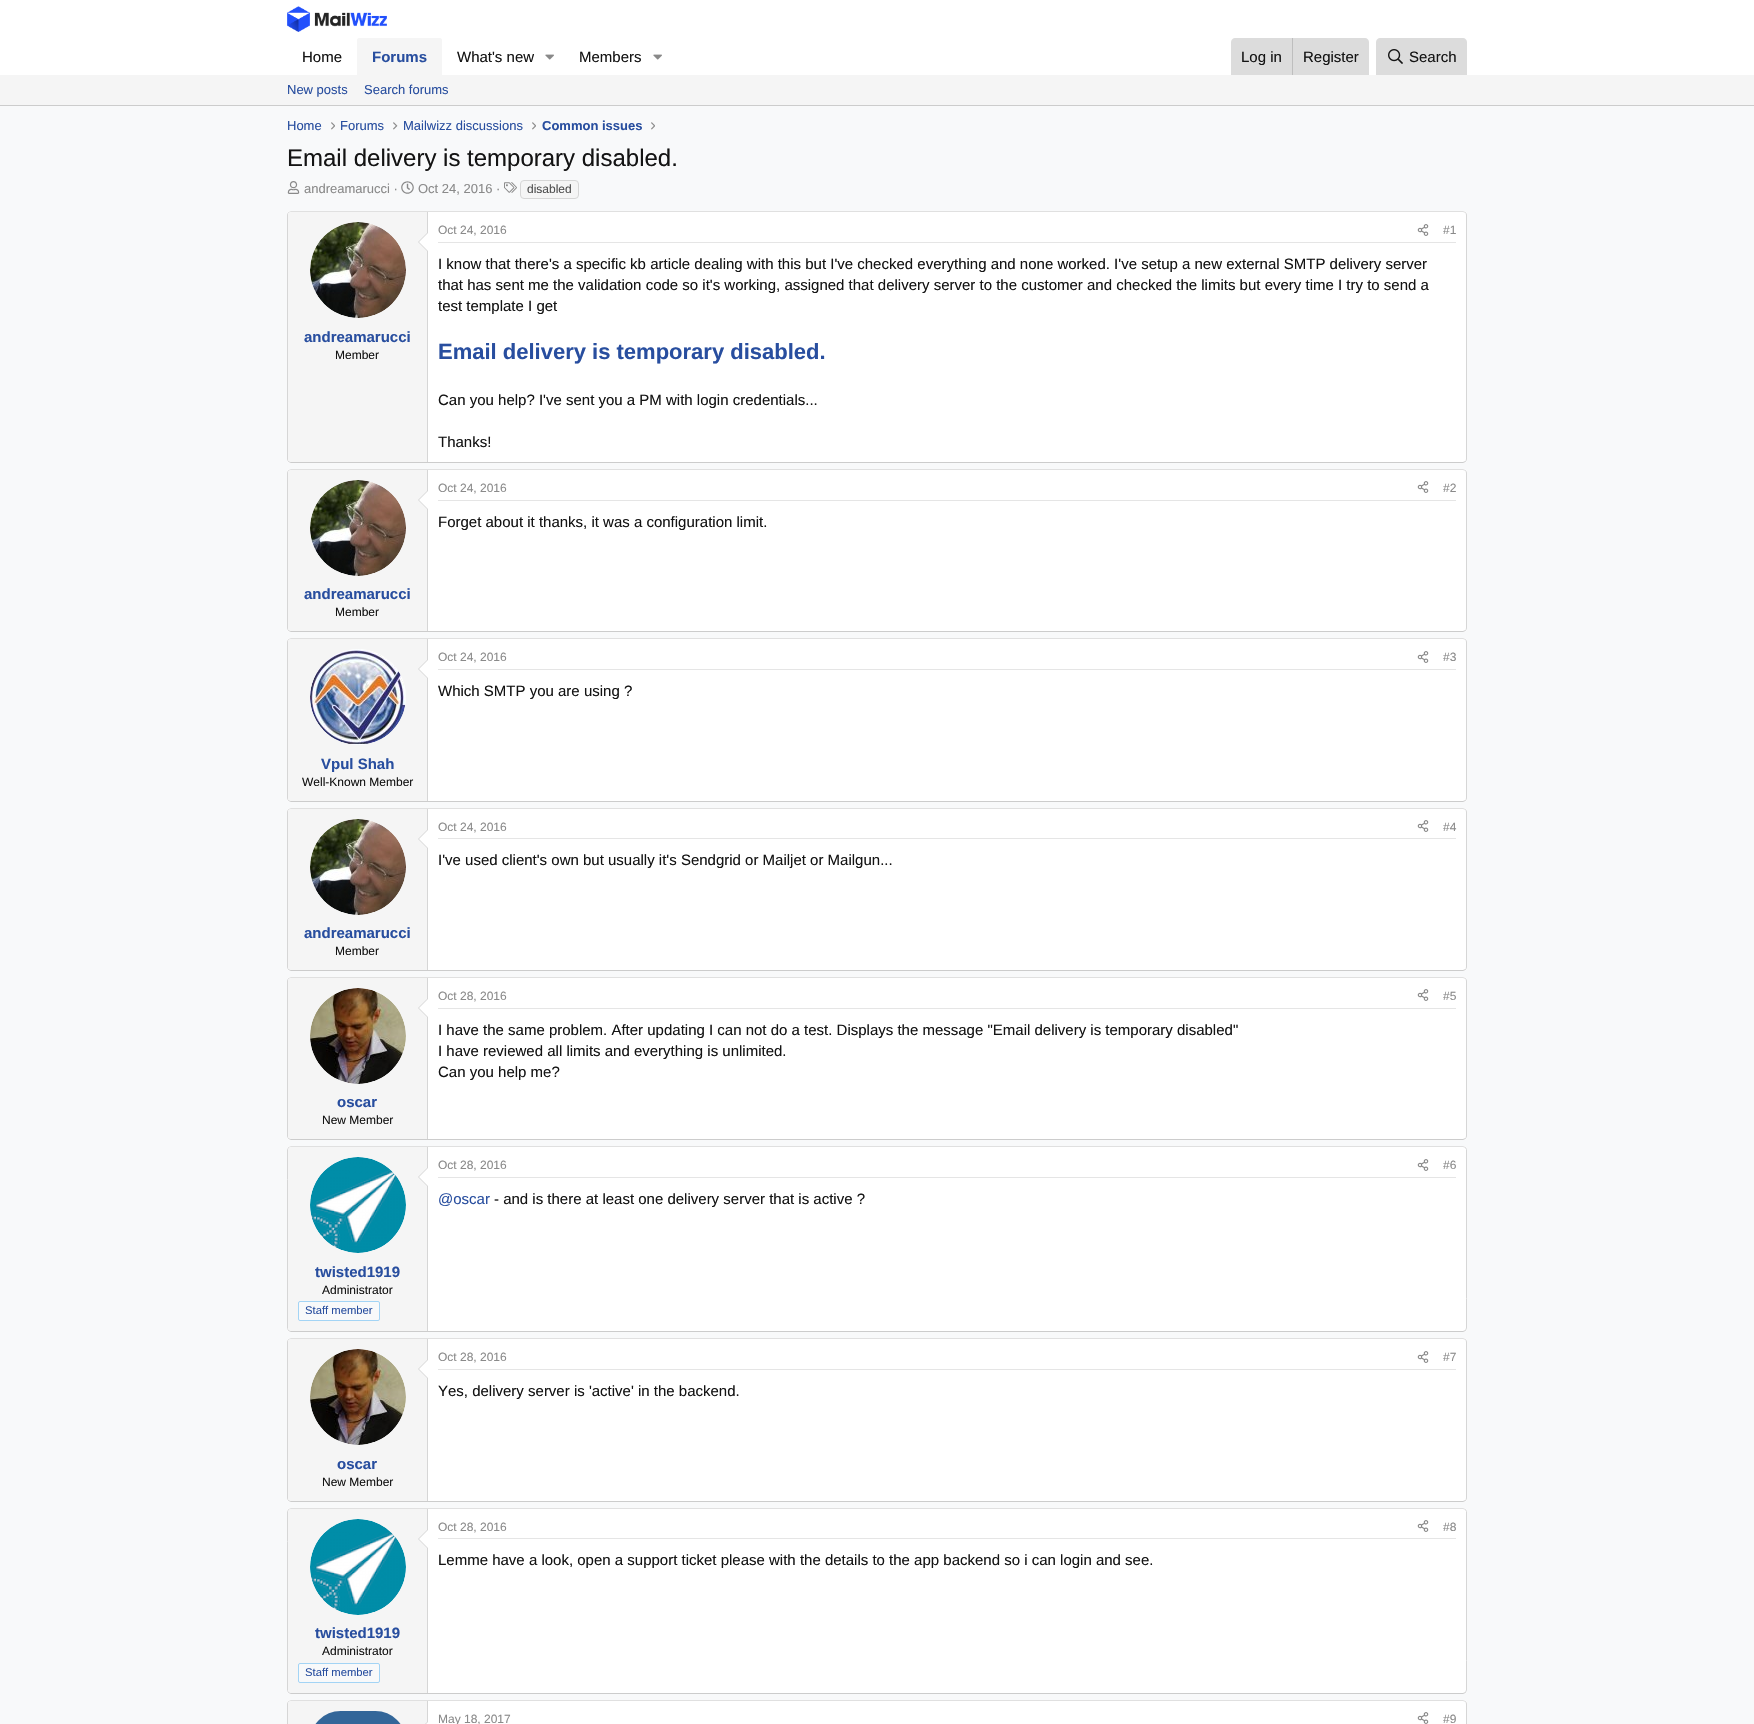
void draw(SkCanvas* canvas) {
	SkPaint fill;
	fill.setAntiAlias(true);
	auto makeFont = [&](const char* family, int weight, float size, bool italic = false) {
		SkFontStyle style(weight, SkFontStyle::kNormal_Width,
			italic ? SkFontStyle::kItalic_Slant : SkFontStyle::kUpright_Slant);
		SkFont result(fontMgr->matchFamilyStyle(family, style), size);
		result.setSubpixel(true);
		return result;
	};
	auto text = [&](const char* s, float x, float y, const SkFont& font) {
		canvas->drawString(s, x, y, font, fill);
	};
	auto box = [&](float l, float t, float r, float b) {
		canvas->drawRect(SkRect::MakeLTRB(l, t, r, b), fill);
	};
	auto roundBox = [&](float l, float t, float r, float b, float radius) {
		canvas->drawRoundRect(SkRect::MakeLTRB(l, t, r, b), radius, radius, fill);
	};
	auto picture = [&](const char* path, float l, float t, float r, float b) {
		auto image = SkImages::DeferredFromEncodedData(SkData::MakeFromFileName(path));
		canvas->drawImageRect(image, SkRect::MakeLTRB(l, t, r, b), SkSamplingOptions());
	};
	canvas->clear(0xFFF8F9FA);
	fill.setColor(0xFFFFFFFF);
	box(0, 0, 1754, 75);
	picture("image0.png", 287, 6, 387, 32);
	fill.setColor(0xFFF5F5F5);
	canvas->drawPath(SkPathBuilder().moveTo(359, 38).lineTo(440, 38).cubicTo(441, 38, 442, 39, 442, 40).lineTo(442, 75).lineTo(357, 75).lineTo(357, 40).cubicTo(357, 39, 358, 38, 359, 38).close().detach(), fill);
	picture("image1.png", 545, 54, 554, 60);
	picture("image1.png", 653, 54, 662, 60);
	fill.setColor(0xFFDCDCDC);
	canvas->drawPath(SkPathBuilder().moveTo(1235, 38).lineTo(1365, 38).cubicTo(1367, 38, 1369, 40, 1369, 42).lineTo(1369, 75).lineTo(1231, 75).lineTo(1231, 42).cubicTo(1231, 40, 1233, 38, 1235, 38).close().detach(), fill);
	fill.setColor(0xFFBEBEBE);
	box(1292, 38, 1293, 75);
	fill.setColor(0xFFDCDCDC);
	canvas->drawPath(SkPathBuilder().moveTo(1380, 38).lineTo(1463, 38).cubicTo(1465, 38, 1467, 40, 1467, 42).lineTo(1467, 75).lineTo(1376, 75).lineTo(1376, 42).cubicTo(1376, 40, 1378, 38, 1380, 38).close().detach(), fill);
	picture("image2.png", 1388, 49, 1403, 64);
	fill.setColor(0xFFF5F5F5);
	box(0, 75, 1754, 105);
	fill.setColor(0xFFCCCCCC);
	box(0, 105, 1754, 106);
	picture("image3.png", 331, 122, 335, 130);
	picture("image4.png", 393, 122, 398, 130);
	picture("image3.png", 532, 122, 536, 130);
	picture("image3.png", 651, 122, 655, 130);
	picture("image5.png", 287, 181, 300, 194);
	picture("image6.png", 401, 181, 414, 194);
	picture("image7.png", 504, 182, 517, 193);
	fill.setColor(0xFFF5F5F5);
	canvas->drawRoundRect(SkRect::MakeLTRB(520.5f, 180.5f, 578.5f, 198.5f), 3.5f, 3.5f, fill);
	fill.setStyle(SkPaint::kStroke_Style);
	fill.setStrokeWidth(1);
	fill.setColor(0xFFD6D6D6);
	canvas->drawRoundRect(SkRect::MakeLTRB(520.5f, 180.5f, 578.5f, 198.5f), 3.5f, 3.5f, fill);
	fill.setStyle(SkPaint::kFill_Style);
	fill.setColor(0xFFFFFFFF);
	roundBox(287, 211, 1467, 463, 4);
	fill.setStyle(SkPaint::kStroke_Style);
	fill.setColor(0xFFE0E0E0);
	canvas->drawPath(SkPathBuilder().moveTo(288.5f, 212.5f).lineTo(291, 211.5f).lineTo(1463, 211.5f).lineTo(1465.5f, 212.5f).detach(), fill);
	fill.setColor(0xFFD6D6D6);
	canvas->drawPath(SkPathBuilder().moveTo(1465.5f, 212.5f).cubicTo(1466, 213, 1466.5f, 214, 1466.5f, 215).lineTo(1466.5f, 459).cubicTo(1466.5f, 460, 1466, 461, 1465.5f, 461.5f).detach(), fill);
	fill.setColor(0xFFCCCCCC);
	canvas->drawPath(SkPathBuilder().moveTo(1465.5f, 461.5f).lineTo(1463, 462.5f).lineTo(291, 462.5f).lineTo(288.5f, 461.5f).detach(), fill);
	fill.setColor(0xFFD6D6D6);
	canvas->drawPath(SkPathBuilder().moveTo(288.5f, 461.5f).cubicTo(288, 461, 287.5f, 460, 287.5f, 459).lineTo(287.5f, 215).cubicTo(287.5f, 214, 288, 213, 288.5f, 212.5f).detach(), fill);
	fill.setStyle(SkPaint::kFill_Style);
	fill.setColor(0xFFF5F5F5);
	canvas->drawPath(SkPathBuilder().moveTo(291, 212).lineTo(428, 212).lineTo(428, 462).lineTo(291, 462).cubicTo(289.5f, 462, 288, 460.5f, 288, 459).lineTo(288, 215).cubicTo(288, 213.5f, 289.5f, 212, 291, 212).close().detach(), fill);
	fill.setColor(0xFFD6D6D6);
	box(427, 212, 428, 462);
	fill.setColor(0xFFFFFFFF);
	canvas->drawCircle(358, 270, 48, fill);
	picture("image8.png", 310, 222, 406, 318);
	fill.setColor(0xFFD6D6D6);
	canvas->drawPath(SkPathBuilder().moveTo(428, 232).lineTo(428, 252).lineTo(418, 242).close().detach(), fill);
	fill.setColor(0xFFFFFFFF);
	canvas->drawPath(SkPathBuilder().moveTo(428, 233).lineTo(428, 251).lineTo(419, 242).close().detach(), fill);
	fill.setColor(0xFFE5E5E5);
	box(438, 242, 1456, 243);
	picture("image9.png", 1417, 224, 1429, 236);
	fill.setColor(0xFFFFFFFF);
	roundBox(287, 469, 1467, 632, 4);
	fill.setStyle(SkPaint::kStroke_Style);
	fill.setColor(0xFFE0E0E0);
	canvas->drawPath(SkPathBuilder().moveTo(288.5f, 470.5f).lineTo(291, 469.5f).lineTo(1463, 469.5f).lineTo(1465.5f, 470.5f).detach(), fill);
	fill.setColor(0xFFD6D6D6);
	canvas->drawPath(SkPathBuilder().moveTo(1465.5f, 470.5f).cubicTo(1466, 471, 1466.5f, 472, 1466.5f, 473).lineTo(1466.5f, 628).cubicTo(1466.5f, 629, 1466, 630, 1465.5f, 630.5f).detach(), fill);
	fill.setColor(0xFFCCCCCC);
	canvas->drawPath(SkPathBuilder().moveTo(1465.5f, 630.5f).lineTo(1463, 631.5f).lineTo(291, 631.5f).lineTo(288.5f, 630.5f).detach(), fill);
	fill.setColor(0xFFD6D6D6);
	canvas->drawPath(SkPathBuilder().moveTo(288.5f, 630.5f).cubicTo(288, 630, 287.5f, 629, 287.5f, 628).lineTo(287.5f, 473).cubicTo(287.5f, 472, 288, 471, 288.5f, 470.5f).detach(), fill);
	fill.setStyle(SkPaint::kFill_Style);
	fill.setColor(0xFFE5E5E5);
	box(438, 500, 1456, 501);
	picture("image9.png", 1417, 481, 1429, 493);
	fill.setColor(0xFFF5F5F5);
	canvas->drawPath(SkPathBuilder().moveTo(291, 470).lineTo(428, 470).lineTo(428, 631).lineTo(291, 631).cubicTo(289.5f, 631, 288, 629.5f, 288, 628).lineTo(288, 473).cubicTo(288, 471.5f, 289.5f, 470, 291, 470).close().detach(), fill);
	fill.setColor(0xFFD6D6D6);
	box(427, 470, 428, 631);
	fill.setColor(0xFFFFFFFF);
	canvas->drawCircle(358, 528, 48, fill);
	picture("image10.png", 310, 480, 406, 576);
	fill.setColor(0xFFD6D6D6);
	canvas->drawPath(SkPathBuilder().moveTo(428, 490).lineTo(428, 510).lineTo(418, 500).close().detach(), fill);
	fill.setColor(0xFFFFFFFF);
	canvas->drawPath(SkPathBuilder().moveTo(428, 491).lineTo(428, 509).lineTo(419, 500).close().detach(), fill);
	roundBox(287, 638, 1467, 802, 4);
	fill.setStyle(SkPaint::kStroke_Style);
	fill.setColor(0xFFE0E0E0);
	canvas->drawPath(SkPathBuilder().moveTo(288.5f, 639.5f).lineTo(291, 638.5f).lineTo(1463, 638.5f).lineTo(1465.5f, 639.5f).detach(), fill);
	fill.setColor(0xFFD6D6D6);
	canvas->drawPath(SkPathBuilder().moveTo(1465.5f, 639.5f).cubicTo(1466, 640, 1466.5f, 641, 1466.5f, 642).lineTo(1466.5f, 798).cubicTo(1466.5f, 799, 1466, 800, 1465.5f, 800.5f).detach(), fill);
	fill.setColor(0xFFCCCCCC);
	canvas->drawPath(SkPathBuilder().moveTo(1465.5f, 800.5f).lineTo(1463, 801.5f).lineTo(291, 801.5f).lineTo(288.5f, 800.5f).detach(), fill);
	fill.setColor(0xFFD6D6D6);
	canvas->drawPath(SkPathBuilder().moveTo(288.5f, 800.5f).cubicTo(288, 800, 287.5f, 799, 287.5f, 798).lineTo(287.5f, 642).cubicTo(287.5f, 641, 288, 640, 288.5f, 639.5f).detach(), fill);
	fill.setStyle(SkPaint::kFill_Style);
	fill.setColor(0xFFE5E5E5);
	box(438, 669, 1456, 670);
	picture("image9.png", 1417, 651, 1429, 663);
	fill.setColor(0xFFF5F5F5);
	canvas->drawPath(SkPathBuilder().moveTo(291, 639).lineTo(428, 639).lineTo(428, 801).lineTo(291, 801).cubicTo(289.5f, 801, 288, 799.5f, 288, 798).lineTo(288, 642).cubicTo(288, 640.5f, 289.5f, 639, 291, 639).close().detach(), fill);
	fill.setColor(0xFFD6D6D6);
	box(427, 639, 428, 801);
	fill.setColor(0xFFFFFFFF);
	canvas->drawCircle(358, 697, 48, fill);
	picture("image11.png", 310, 649, 406, 745);
	fill.setColor(0xFFD6D6D6);
	canvas->drawPath(SkPathBuilder().moveTo(428, 659).lineTo(428, 679).lineTo(418, 669).close().detach(), fill);
	fill.setColor(0xFFFFFFFF);
	canvas->drawPath(SkPathBuilder().moveTo(428, 660).lineTo(428, 678).lineTo(419, 669).close().detach(), fill);
	roundBox(287, 808, 1467, 971, 4);
	fill.setStyle(SkPaint::kStroke_Style);
	fill.setColor(0xFFE0E0E0);
	canvas->drawPath(SkPathBuilder().moveTo(288.5f, 809.5f).lineTo(291, 808.5f).lineTo(1463, 808.5f).lineTo(1465.5f, 809.5f).detach(), fill);
	fill.setColor(0xFFD6D6D6);
	canvas->drawPath(SkPathBuilder().moveTo(1465.5f, 809.5f).cubicTo(1466, 810, 1466.5f, 811, 1466.5f, 812).lineTo(1466.5f, 967).cubicTo(1466.5f, 968, 1466, 969, 1465.5f, 969.5f).detach(), fill);
	fill.setColor(0xFFCCCCCC);
	canvas->drawPath(SkPathBuilder().moveTo(1465.5f, 969.5f).lineTo(1463, 970.5f).lineTo(291, 970.5f).lineTo(288.5f, 969.5f).detach(), fill);
	fill.setColor(0xFFD6D6D6);
	canvas->drawPath(SkPathBuilder().moveTo(288.5f, 969.5f).cubicTo(288, 969, 287.5f, 968, 287.5f, 967).lineTo(287.5f, 812).cubicTo(287.5f, 811, 288, 810, 288.5f, 809.5f).detach(), fill);
	fill.setStyle(SkPaint::kFill_Style);
	fill.setColor(0xFFE5E5E5);
	box(438, 838, 1456, 839);
	picture("image9.png", 1417, 820, 1429, 832);
	fill.setColor(0xFFF5F5F5);
	canvas->drawPath(SkPathBuilder().moveTo(291, 809).lineTo(428, 809).lineTo(428, 970).lineTo(291, 970).cubicTo(289.5f, 970, 288, 968.5f, 288, 967).lineTo(288, 812).cubicTo(288, 810.5f, 289.5f, 809, 291, 809).close().detach(), fill);
	fill.setColor(0xFFD6D6D6);
	box(427, 809, 428, 970);
	fill.setColor(0xFFFFFFFF);
	canvas->drawCircle(358, 867, 48, fill);
	picture("image12.png", 310, 819, 406, 915);
	fill.setColor(0xFFD6D6D6);
	canvas->drawPath(SkPathBuilder().moveTo(428, 829).lineTo(428, 849).lineTo(418, 839).close().detach(), fill);
	fill.setColor(0xFFFFFFFF);
	canvas->drawPath(SkPathBuilder().moveTo(428, 830).lineTo(428, 848).lineTo(419, 839).close().detach(), fill);
	roundBox(287, 977, 1467, 1140, 4);
	fill.setStyle(SkPaint::kStroke_Style);
	fill.setColor(0xFFE0E0E0);
	canvas->drawPath(SkPathBuilder().moveTo(288.5f, 978.5f).lineTo(291, 977.5f).lineTo(1463, 977.5f).lineTo(1465.5f, 978.5f).detach(), fill);
	fill.setColor(0xFFD6D6D6);
	canvas->drawPath(SkPathBuilder().moveTo(1465.5f, 978.5f).cubicTo(1466, 979, 1466.5f, 980, 1466.5f, 981).lineTo(1466.5f, 1136).cubicTo(1466.5f, 1137, 1466, 1138, 1465.5f, 1138.5f).detach(), fill);
	fill.setColor(0xFFCCCCCC);
	canvas->drawPath(SkPathBuilder().moveTo(1465.5f, 1138.5f).lineTo(1463, 1139.5f).lineTo(291, 1139.5f).lineTo(288.5f, 1138.5f).detach(), fill);
	fill.setColor(0xFFD6D6D6);
	canvas->drawPath(SkPathBuilder().moveTo(288.5f, 1138.5f).cubicTo(288, 1138, 287.5f, 1137, 287.5f, 1136).lineTo(287.5f, 981).cubicTo(287.5f, 980, 288, 979, 288.5f, 978.5f).detach(), fill);
	fill.setStyle(SkPaint::kFill_Style);
	fill.setColor(0xFFE5E5E5);
	box(438, 1008, 1456, 1009);
	picture("image9.png", 1417, 989, 1429, 1001);
	fill.setColor(0xFFF5F5F5);
	canvas->drawPath(SkPathBuilder().moveTo(291, 978).lineTo(428, 978).lineTo(428, 1139).lineTo(291, 1139).cubicTo(289.5f, 1139, 288, 1137.5f, 288, 1136).lineTo(288, 981).cubicTo(288, 979.5f, 289.5f, 978, 291, 978).close().detach(), fill);
	fill.setColor(0xFFD6D6D6);
	box(427, 978, 428, 1139);
	fill.setColor(0xFFFFFFFF);
	canvas->drawCircle(358, 1036, 48, fill);
	picture("image13.png", 310, 988, 406, 1084);
	fill.setColor(0xFFD6D6D6);
	canvas->drawPath(SkPathBuilder().moveTo(428, 998).lineTo(428, 1018).lineTo(418, 1008).close().detach(), fill);
	fill.setColor(0xFFFFFFFF);
	canvas->drawPath(SkPathBuilder().moveTo(428, 999).lineTo(428, 1017).lineTo(419, 1008).close().detach(), fill);
	roundBox(287, 1146, 1467, 1332, 4);
	fill.setStyle(SkPaint::kStroke_Style);
	fill.setColor(0xFFE0E0E0);
	canvas->drawPath(SkPathBuilder().moveTo(288.5f, 1147.5f).lineTo(291, 1146.5f).lineTo(1463, 1146.5f).lineTo(1465.5f, 1147.5f).detach(), fill);
	fill.setColor(0xFFD6D6D6);
	canvas->drawPath(SkPathBuilder().moveTo(1465.5f, 1147.5f).lineTo(1466.5f, 1149.5f).lineTo(1466.5f, 1298.5f).lineTo(1466.5f, 1328).lineTo(1465.5f, 1330.5f).detach(), fill);
	fill.setColor(0xFFCCCCCC);
	canvas->drawPath(SkPathBuilder().moveTo(1465.5f, 1330.5f).lineTo(1463, 1331.5f).lineTo(291, 1331.5f).lineTo(288.5f, 1330.5f).detach(), fill);
	fill.setColor(0xFFD6D6D6);
	canvas->drawPath(SkPathBuilder().moveTo(288.5f, 1330.5f).lineTo(287.5f, 1328.5f).lineTo(287.5f, 1179.5f).lineTo(287.5f, 1150).lineTo(288.5f, 1147.5f).detach(), fill);
	fill.setStyle(SkPaint::kFill_Style);
	fill.setColor(0xFFE5E5E5);
	box(438, 1177, 1456, 1178);
	picture("image9.png", 1417, 1159, 1429, 1171);
	fill.setColor(0xFFF5F5F5);
	canvas->drawPath(SkPathBuilder().moveTo(291, 1147).lineTo(428, 1147).lineTo(428, 1331).lineTo(291, 1331).cubicTo(289.5f, 1331, 288, 1329.5f, 288, 1328).lineTo(288, 1150).cubicTo(288, 1148.5f, 289.5f, 1147, 291, 1147).close().detach(), fill);
	fill.setColor(0xFFD6D6D6);
	box(427, 1147, 428, 1331);
	fill.setColor(0xFFFFFFFF);
	canvas->drawCircle(358, 1205, 48, fill);
	picture("image14.png", 310, 1157, 406, 1253);
	fill.setColor(0xFFD6D6D6);
	canvas->drawPath(SkPathBuilder().moveTo(428, 1167).lineTo(428, 1187).lineTo(418, 1177).close().detach(), fill);
	fill.setColor(0xFFFFFFFF);
	canvas->drawPath(SkPathBuilder().moveTo(428, 1168).lineTo(428, 1186).lineTo(419, 1177).close().detach(), fill);
	fill.setColor(0xFFF8F9FA);
	canvas->drawRoundRect(SkRect::MakeLTRB(298.5f, 1301.5f, 379.5f, 1320.5f), 1.5f, 1.5f, fill);
	fill.setStyle(SkPaint::kStroke_Style);
	fill.setColor(0xFFA3D4F5);
	canvas->drawRoundRect(SkRect::MakeLTRB(298.5f, 1301.5f, 379.5f, 1320.5f), 1.5f, 1.5f, fill);
	fill.setStyle(SkPaint::kFill_Style);
	fill.setColor(0xFFFFFFFF);
	roundBox(287, 1338, 1467, 1502, 4);
	fill.setStyle(SkPaint::kStroke_Style);
	fill.setColor(0xFFE0E0E0);
	canvas->drawPath(SkPathBuilder().moveTo(288.5f, 1339.5f).lineTo(291, 1338.5f).lineTo(1463, 1338.5f).lineTo(1465.5f, 1339.5f).detach(), fill);
	fill.setColor(0xFFD6D6D6);
	canvas->drawPath(SkPathBuilder().moveTo(1465.5f, 1339.5f).cubicTo(1466, 1340, 1466.5f, 1341, 1466.5f, 1342).lineTo(1466.5f, 1498).cubicTo(1466.5f, 1499, 1466, 1500, 1465.5f, 1500.5f).detach(), fill);
	fill.setColor(0xFFCCCCCC);
	canvas->drawPath(SkPathBuilder().moveTo(1465.5f, 1500.5f).lineTo(1463, 1501.5f).lineTo(291, 1501.5f).lineTo(288.5f, 1500.5f).detach(), fill);
	fill.setColor(0xFFD6D6D6);
	canvas->drawPath(SkPathBuilder().moveTo(288.5f, 1500.5f).cubicTo(288, 1500, 287.5f, 1499, 287.5f, 1498).lineTo(287.5f, 1342).cubicTo(287.5f, 1341, 288, 1340, 288.5f, 1339.5f).detach(), fill);
	fill.setStyle(SkPaint::kFill_Style);
	fill.setColor(0xFFE5E5E5);
	box(438, 1369, 1456, 1370);
	picture("image9.png", 1417, 1351, 1429, 1363);
	fill.setColor(0xFFF5F5F5);
	canvas->drawPath(SkPathBuilder().moveTo(291, 1339).lineTo(428, 1339).lineTo(428, 1501).lineTo(291, 1501).cubicTo(289.5f, 1501, 288, 1499.5f, 288, 1498).lineTo(288, 1342).cubicTo(288, 1340.5f, 289.5f, 1339, 291, 1339).close().detach(), fill);
	fill.setColor(0xFFD6D6D6);
	box(427, 1339, 428, 1501);
	fill.setColor(0xFFFFFFFF);
	canvas->drawCircle(358, 1397, 48, fill);
	picture("image15.png", 310, 1349, 406, 1445);
	fill.setColor(0xFFD6D6D6);
	canvas->drawPath(SkPathBuilder().moveTo(428, 1359).lineTo(428, 1379).lineTo(418, 1369).close().detach(), fill);
	fill.setColor(0xFFFFFFFF);
	canvas->drawPath(SkPathBuilder().moveTo(428, 1360).lineTo(428, 1378).lineTo(419, 1369).close().detach(), fill);
	roundBox(287, 1508, 1467, 1694, 4);
	fill.setStyle(SkPaint::kStroke_Style);
	fill.setColor(0xFFE0E0E0);
	canvas->drawPath(SkPathBuilder().moveTo(288.5f, 1509.5f).lineTo(291, 1508.5f).lineTo(1463, 1508.5f).lineTo(1465.5f, 1509.5f).detach(), fill);
	fill.setColor(0xFFD6D6D6);
	canvas->drawPath(SkPathBuilder().moveTo(1465.5f, 1509.5f).lineTo(1466.5f, 1511.5f).lineTo(1466.5f, 1660.5f).lineTo(1466.5f, 1690).lineTo(1465.5f, 1692.5f).detach(), fill);
	fill.setColor(0xFFCCCCCC);
	canvas->drawPath(SkPathBuilder().moveTo(1465.5f, 1692.5f).lineTo(1463, 1693.5f).lineTo(291, 1693.5f).lineTo(288.5f, 1692.5f).detach(), fill);
	fill.setColor(0xFFD6D6D6);
	canvas->drawPath(SkPathBuilder().moveTo(288.5f, 1692.5f).lineTo(287.5f, 1690.5f).lineTo(287.5f, 1541.5f).lineTo(287.5f, 1512).lineTo(288.5f, 1509.5f).detach(), fill);
	fill.setStyle(SkPaint::kFill_Style);
	fill.setColor(0xFFE5E5E5);
	box(438, 1538, 1456, 1539);
	picture("image16.png", 1417, 1520, 1429, 1532);
	fill.setColor(0xFFF5F5F5);
	canvas->drawPath(SkPathBuilder().moveTo(291, 1509).lineTo(428, 1509).lineTo(428, 1693).lineTo(291, 1693).cubicTo(289.5f, 1693, 288, 1691.5f, 288, 1690).lineTo(288, 1512).cubicTo(288, 1510.5f, 289.5f, 1509, 291, 1509).close().detach(), fill);
	fill.setColor(0xFFD6D6D6);
	box(427, 1509, 428, 1693);
	fill.setColor(0xFFFFFFFF);
	canvas->drawCircle(358, 1567, 48, fill);
	picture("image17.png", 310, 1519, 406, 1615);
	fill.setColor(0xFFD6D6D6);
	canvas->drawPath(SkPathBuilder().moveTo(428, 1529).lineTo(428, 1549).lineTo(418, 1539).close().detach(), fill);
	fill.setColor(0xFFFFFFFF);
	canvas->drawPath(SkPathBuilder().moveTo(428, 1530).lineTo(428, 1548).lineTo(419, 1539).close().detach(), fill);
	fill.setColor(0xFFF8F9FA);
	canvas->drawRoundRect(SkRect::MakeLTRB(298.5f, 1663.5f, 379.5f, 1682.5f), 1.5f, 1.5f, fill);
	fill.setStyle(SkPaint::kStroke_Style);
	fill.setColor(0xFFA3D4F5);
	canvas->drawRoundRect(SkRect::MakeLTRB(298.5f, 1663.5f, 379.5f, 1682.5f), 1.5f, 1.5f, fill);
	fill.setStyle(SkPaint::kFill_Style);
	fill.setColor(0xFFFFFFFF);
	roundBox(287, 1700, 1467, 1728, 4);
	fill.setStyle(SkPaint::kStroke_Style);
	fill.setColor(0xFFE0E0E0);
	canvas->drawPath(SkPathBuilder().moveTo(288.5f, 1701.5f).lineTo(291, 1700.5f).lineTo(1463, 1700.5f).lineTo(1465.5f, 1701.5f).detach(), fill);
	fill.setColor(0xFFD6D6D6);
	canvas->drawPath(SkPathBuilder().moveTo(1465.5f, 1701.5f).cubicTo(1466, 1702, 1466.5f, 1703, 1466.5f, 1704).lineTo(1466.5f, 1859).cubicTo(1466.5f, 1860, 1466, 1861, 1465.5f, 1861.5f).detach(), fill);
	canvas->drawPath(SkPathBuilder().moveTo(288.5f, 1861.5f).cubicTo(288, 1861, 287.5f, 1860, 287.5f, 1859).lineTo(287.5f, 1704).cubicTo(287.5f, 1703, 288, 1702, 288.5f, 1701.5f).detach(), fill);
	fill.setStyle(SkPaint::kFill_Style);
	fill.setColor(0xFFF5F5F5);
	canvas->drawPath(SkPathBuilder().moveTo(291, 1701).lineTo(428, 1701).lineTo(428, 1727).lineTo(291, 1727).cubicTo(289.5f, 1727, 288, 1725.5f, 288, 1724).lineTo(288, 1704).cubicTo(288, 1702.5f, 289.5f, 1701, 291, 1701).close().detach(), fill);
	fill.setColor(0xFFD6D6D6);
	box(427, 1701, 428, 1724);
	fill.setColor(0xFF336699);
	roundBox(310, 1711, 406, 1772, 48);
	fill.setColor(0xFFD6D6D6);
	canvas->drawPath(SkPathBuilder().moveTo(428, 1721).lineTo(428, 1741).lineTo(418, 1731).close().detach(), fill);
	fill.setColor(0xFFFFFFFF);
	canvas->drawPath(SkPathBuilder().moveTo(428, 1722).lineTo(428, 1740).lineTo(419, 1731).close().detach(), fill);
	picture("image9.png", 1417, 1712, 1429, 1724);
	auto font1 = makeFont("Liberation Sans", 400, 15);
	fill.setColor(0xFF141414);
	text("Home", 302, 62, font1);
	auto font2 = makeFont("Liberation Sans", 700, 15);
	fill.setColor(0xFF284E9F);
	text("Forums", 372, 62, font2);
	fill.setColor(0xFF141414);
	text("What's new", 457, 62, font1);
	text("Members", 579, 62, font1);
	text("Log in", 1241, 62, font1);
	text("Register", 1303, 62, font1);
	text("Search", 1409, 62, font1);
	auto font3 = makeFont("Liberation Sans", 400, 13);
	fill.setColor(0xFF284E9F);
	text("New posts", 287, 94, font3);
	text("Search forums", 364, 94, font3);
	text("Home", 287, 130, font3);
	text("Forums", 340, 130, font3);
	text("Mailwizz discussions", 403, 130, font3);
	auto font4 = makeFont("Liberation Sans", 700, 13);
	text("Common issues", 542, 130, font4);
	auto font5 = makeFont("Liberation Sans", 400, 24);
	fill.setColor(0xFF141414);
	text("Email delivery is temporary disabled.", 287, 166, font5);
	fill.setColor(0xFF8A8A8A);
	text("andreamarucci ·", 304, 193, font3);
	text("Oct 24, 2016 ·", 418, 193, font3);
	auto font6 = makeFont("Liberation Sans", 400, 12);
	fill.setColor(0xFF4F4F4F);
	text("disabled", 527, 193, font6);
	fill.setColor(0xFF284E9F);
	text("andreamarucci", 304, 342, font2);
	fill.setColor(0xFF141414);
	text("Member", 335, 359, font6);
	fill.setColor(0xFF8A8A8A);
	text("Oct 24, 2016", 438, 234, font6);
	text("#1", 1443, 234, font6);
	fill.setColor(0xFF141414);
	text("I know that there's a specific kb article dealing with this but I've checked everything and none worked. I've setup a new external SMTP delivery server", 438, 269, font1);
	text("that has sent me the validation code so it's working, assigned that delivery server to the customer and checked the limits but every time I try to send a", 438, 290, font1);
	text("test template I get", 438, 311, font1);
	auto font7 = makeFont("Liberation Sans", 700, 22);
	fill.setColor(0xFF284E9F);
	text("Email delivery is temporary disabled.", 438, 359, font7);
	fill.setColor(0xFF141414);
	text("Can you help? I've sent you a PM with login credentials...", 438, 405, font1);
	text("Thanks!", 438, 447, font1);
	fill.setColor(0xFF8A8A8A);
	text("Oct 24, 2016", 438, 492, font6);
	text("#2", 1443, 492, font6);
	fill.setColor(0xFF141414);
	text("Forget about it thanks, it was a configuration limit.", 438, 527, font1);
	fill.setColor(0xFF284E9F);
	text("andreamarucci", 304, 599, font2);
	fill.setColor(0xFF141414);
	text("Member", 335, 616, font6);
	fill.setColor(0xFF8A8A8A);
	text("Oct 24, 2016", 438, 661, font6);
	text("#3", 1443, 661, font6);
	fill.setColor(0xFF141414);
	text("Which SMTP you are using ?", 438, 696, font1);
	fill.setColor(0xFF284E9F);
	text("Vpul Shah", 321, 769, font2);
	fill.setColor(0xFF141414);
	text("Well-Known Member", 302, 786, font6);
	fill.setColor(0xFF8A8A8A);
	text("Oct 24, 2016", 438, 831, font6);
	text("#4", 1443, 831, font6);
	fill.setColor(0xFF141414);
	text("I've used client's own but usually it's Sendgrid or Mailjet or Mailgun...", 438, 865, font1);
	fill.setColor(0xFF284E9F);
	text("andreamarucci", 304, 938, font2);
	fill.setColor(0xFF141414);
	text("Member", 335, 955, font6);
	fill.setColor(0xFF8A8A8A);
	text("Oct 28, 2016", 438, 1000, font6);
	text("#5", 1443, 1000, font6);
	fill.setColor(0xFF141414);
	text("I have the same problem. After updating I can not do a test. Displays the message \"Email delivery is temporary disabled\"", 438, 1035, font1);
	text("I have reviewed all limits and everything is unlimited.", 438, 1056, font1);
	text("Can you help me?", 438, 1077, font1);
	fill.setColor(0xFF284E9F);
	text("oscar", 337, 1107, font2);
	fill.setColor(0xFF141414);
	text("New Member", 322, 1124, font6);
	fill.setColor(0xFF8A8A8A);
	text("Oct 28, 2016", 438, 1169, font6);
	text("#6", 1443, 1169, font6);
	fill.setColor(0xFF284E9F);
	text("@oscar", 438, 1204, font1);
	fill.setColor(0xFF141414);
	text("- and is there at least one delivery server that is active ?", 494, 1204, font1);
	fill.setColor(0xFF284E9F);
	text("twisted1919", 315, 1277, font2);
	fill.setColor(0xFF141414);
	text("Administrator", 322, 1294, font6);
	auto font8 = makeFont("Liberation Sans", 400, 11.25f);
	fill.setColor(0xFF284E9F);
	text("Staff member", 305, 1314, font8);
	fill.setColor(0xFF8A8A8A);
	text("Oct 28, 2016", 438, 1361, font6);
	text("#7", 1443, 1361, font6);
	fill.setColor(0xFF141414);
	text("Yes, delivery server is 'active' in the backend.", 438, 1396, font1);
	fill.setColor(0xFF284E9F);
	text("oscar", 337, 1469, font2);
	fill.setColor(0xFF141414);
	text("New Member", 322, 1486, font6);
	fill.setColor(0xFF8A8A8A);
	text("Oct 28, 2016", 438, 1531, font6);
	text("#8", 1443, 1531, font6);
	fill.setColor(0xFF141414);
	text("Lemme have a look, open a support ticket please with the details to the app backend so i can login and see.", 438, 1565, font1);
	fill.setColor(0xFF284E9F);
	text("twisted1919", 315, 1638, font2);
	fill.setColor(0xFF141414);
	text("Administrator", 322, 1655, font6);
	fill.setColor(0xFF284E9F);
	text("Staff member", 305, 1676, font8);
	fill.setColor(0xFF8A8A8A);
	text("May 18, 2017", 438, 1723, font6);
	text("#9", 1443, 1723, font6);
}
